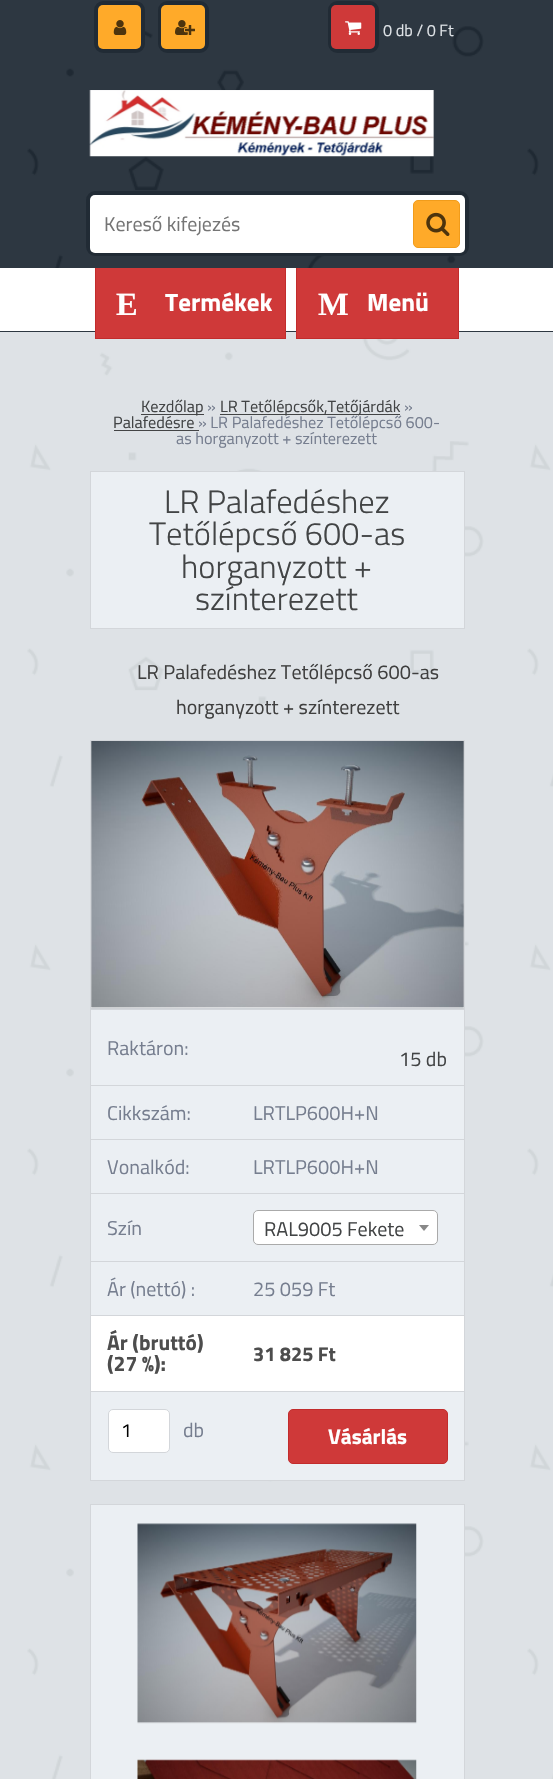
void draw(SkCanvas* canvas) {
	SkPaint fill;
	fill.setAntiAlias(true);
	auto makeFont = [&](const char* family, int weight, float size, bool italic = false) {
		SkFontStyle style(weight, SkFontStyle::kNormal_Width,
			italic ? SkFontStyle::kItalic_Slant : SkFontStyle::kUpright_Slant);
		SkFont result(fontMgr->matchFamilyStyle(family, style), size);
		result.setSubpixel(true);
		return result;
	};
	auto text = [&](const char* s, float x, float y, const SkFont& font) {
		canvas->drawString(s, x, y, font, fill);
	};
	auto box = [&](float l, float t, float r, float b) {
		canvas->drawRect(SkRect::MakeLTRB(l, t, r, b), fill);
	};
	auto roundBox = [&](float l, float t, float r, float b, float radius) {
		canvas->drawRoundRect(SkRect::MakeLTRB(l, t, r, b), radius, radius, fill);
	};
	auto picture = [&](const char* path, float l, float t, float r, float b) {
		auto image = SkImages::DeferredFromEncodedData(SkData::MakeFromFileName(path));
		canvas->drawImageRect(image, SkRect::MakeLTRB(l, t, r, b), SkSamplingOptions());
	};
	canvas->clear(0xFFDEE2E6);
	picture("image0.png", 27, 332, 553, 1779);
	picture("image7.png", 0, 0, 553, 332);
	fill.setStyle(SkPaint::kStroke_Style);
	fill.setStrokeWidth(4);
	fill.setColor(0xFF212B35);
	canvas->drawRoundRect(SkRect::MakeLTRB(96, 3, 143, 51), 7, 7, fill);
	fill.setStyle(SkPaint::kFill_Style);
	fill.setColor(0xFFFFAA29);
	roundBox(98, 5, 141, 49, 5);
	picture("image1.png", 113, 20, 127, 35);
	fill.setStyle(SkPaint::kStroke_Style);
	fill.setColor(0xFF212B35);
	canvas->drawRoundRect(SkRect::MakeLTRB(160, 3, 207, 51), 7, 7, fill);
	fill.setStyle(SkPaint::kFill_Style);
	fill.setColor(0xFFFFAA29);
	roundBox(161, 5, 205, 49, 5);
	picture("image2.png", 175, 20, 195, 35);
	fill.setStyle(SkPaint::kStroke_Style);
	fill.setColor(0xFF212B35);
	canvas->drawRoundRect(SkRect::MakeLTRB(330, 3, 377, 51), 7, 7, fill);
	fill.setStyle(SkPaint::kFill_Style);
	fill.setColor(0xFFCF3939);
	roundBox(331, 5, 375, 49, 5);
	picture("image3.png", 345, 21, 362, 35);
	fill.setColor(0xFFFFFFFF);
	box(0, 268, 553, 331);
	fill.setColor(0xFFCF3939);
	box(96, 268, 285, 338);
	fill.setColor(0xFFC22C2C);
	box(285, 268, 286, 339);
	box(95, 338, 286, 339);
	box(95, 268, 96, 339);
	fill.setColor(0xFFCF3939);
	box(297, 268, 458, 338);
	fill.setColor(0xFFC22C2C);
	box(458, 268, 459, 339);
	box(296, 338, 459, 339);
	box(296, 268, 297, 339);
	fill.setColor(0xFF434445);
	box(141, 414, 204, 415);
	fill.setColor(0xB3000000);
	box(220, 414, 400, 415);
	fill.setColor(0xFF434445);
	box(114, 430, 199, 431);
	fill.setColor(0xFFEBEFF3);
	canvas->drawRect(SkRect::MakeLTRB(90.5f, 471.5f, 464.5f, 628.5f), fill);
	fill.setStyle(SkPaint::kStroke_Style);
	fill.setStrokeWidth(1);
	fill.setColor(0xFFD3D6DA);
	canvas->drawRect(SkRect::MakeLTRB(90.5f, 471.5f, 464.5f, 628.5f), fill);
	canvas->drawRect(SkRect::MakeLTRB(90.5f, 740.5f, 464.5f, 1008.5f), fill);
	fill.setStyle(SkPaint::kFill_Style);
	fill.setColor(0xFFFFFFFF);
	box(91, 741, 464, 1008);
	picture("image4.png", 91, 741, 464, 1009);
	box(91, 1316, 464, 1391);
	fill.setColor(0xFFD3D6DA);
	box(90, 1009, 465, 1010);
	box(464, 1009, 465, 1481);
	box(90, 1480, 465, 1481);
	box(90, 1009, 91, 1481);
	fill.setColor(0xFFEBEFF3);
	box(91, 1010, 464, 1085);
	box(91, 1086, 464, 1139);
	fill.setColor(0xFFD3D6DA);
	box(90, 1085, 465, 1086);
	fill.setColor(0xFFEBEFF3);
	box(91, 1140, 464, 1193);
	fill.setColor(0xFFD3D6DA);
	box(90, 1139, 465, 1140);
	fill.setColor(0xFFEBEFF3);
	box(91, 1194, 464, 1261);
	fill.setColor(0xFFD3D6DA);
	box(90, 1193, 465, 1194);
	fill.setColor(0xFFFFFFFF);
	canvas->drawRoundRect(SkRect::MakeLTRB(253.5f, 1210.5f, 437.5f, 1244.5f), 4.5f, 4.5f, fill);
	fill.setStyle(SkPaint::kStroke_Style);
	fill.setColor(0xFFAAAAAA);
	canvas->drawRoundRect(SkRect::MakeLTRB(253.5f, 1210.5f, 437.5f, 1244.5f), 4.5f, 4.5f, fill);
	fill.setStyle(SkPaint::kFill_Style);
	fill.setColor(0xFF888888);
	canvas->drawPath(SkPathBuilder().moveTo(419, 1225).lineTo(429, 1225).lineTo(424, 1231).close().detach(), fill);
	fill.setColor(0xFFEBEFF3);
	box(91, 1262, 464, 1315);
	fill.setColor(0xFFD3D6DA);
	box(90, 1261, 465, 1262);
	box(90, 1315, 465, 1316);
	fill.setColor(0xFFEBEFF3);
	box(91, 1392, 464, 1480);
	fill.setColor(0xFFD3D6DA);
	box(90, 1391, 465, 1392);
	fill.setColor(0xFFFFFFFF);
	canvas->drawRoundRect(SkRect::MakeLTRB(108.5f, 1409.5f, 169.5f, 1452.5f), 4.5f, 4.5f, fill);
	fill.setStyle(SkPaint::kStroke_Style);
	fill.setColor(0xFFD3D6DA);
	canvas->drawRoundRect(SkRect::MakeLTRB(108.5f, 1409.5f, 169.5f, 1452.5f), 4.5f, 4.5f, fill);
	fill.setStyle(SkPaint::kFill_Style);
	fill.setColor(0xFFCF3939);
	canvas->drawRoundRect(SkRect::MakeLTRB(288.5f, 1409.5f, 447.5f, 1463.5f), 4.5f, 4.5f, fill);
	fill.setStyle(SkPaint::kStroke_Style);
	fill.setColor(0xFFC22C2C);
	canvas->drawRoundRect(SkRect::MakeLTRB(288.5f, 1409.5f, 447.5f, 1463.5f), 4.5f, 4.5f, fill);
	fill.setStyle(SkPaint::kFill_Style);
	fill.setColor(0xFFEBEFF3);
	canvas->drawRect(SkRect::MakeLTRB(90.5f, 1504.5f, 464.5f, 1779.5f), fill);
	fill.setStyle(SkPaint::kStroke_Style);
	fill.setColor(0xFFD3D6DA);
	canvas->drawRect(SkRect::MakeLTRB(90.5f, 1504.5f, 464.5f, 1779.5f), fill);
	picture("image5.png", 137, 1523, 417, 1724);
	picture("image6.png", 137, 1759, 417, 1779);
	picture("image8.png", 89, 90, 434, 157);
	fill.setStrokeWidth(4);
	fill.setColor(0xFF212B35);
	canvas->drawRoundRect(SkRect::MakeLTRB(88, 193, 467, 254), 7, 7, fill);
	fill.setStyle(SkPaint::kFill_Style);
	fill.setColor(0xFFFFFFFF);
	roundBox(90, 195, 465, 253, 5);
	fill.setColor(0xFFFFAA29);
	canvas->drawRoundRect(SkRect::MakeLTRB(413.5f, 200.5f, 459.5f, 247.5f), 4.5f, 4.5f, fill);
	fill.setStyle(SkPaint::kStroke_Style);
	fill.setStrokeWidth(1);
	fill.setColor(0xFFF19C1B);
	canvas->drawRoundRect(SkRect::MakeLTRB(413.5f, 200.5f, 459.5f, 247.5f), 4.5f, 4.5f, fill);
	picture("image9.png", 426, 212, 450, 236);
	auto font1 = makeFont("Titillium Web", 400, 16.25f);
	fill.setStyle(SkPaint::kFill_Style);
	fill.setColor(0xFFDEE2E6);
	text("0 db / 0 Ft", 383, 36, font1);
	auto font2 = makeFont("Liberation Serif", 700, 32.5f);
	fill.setColor(0xFFFFFFFF);
	text("E", 116, 315, font2);
	auto font3 = makeFont("Titillium Web", 700, 25);
	text("Termékek", 165, 311, font3);
	text("M", 318, 315, font2);
	text("Menü", 367, 311, font3);
	fill.setColor(0xFF424445);
	text("Kezdőlap", 141, 412, font1);
	fill.setColor(0xFF767E8F);
	text("»", 207, 412, font1);
	fill.setColor(0xFF424445);
	text("LR Tetőlépcsők,Tetőjárdák", 220, 412, font1);
	fill.setColor(0xFF767E8F);
	text("»", 404, 412, font1);
	fill.setColor(0xFF424445);
	text("Palafedésre", 113, 428, font1);
	fill.setColor(0xFF767E8F);
	text("» LR Palafedéshez Tetőlépcső 600-", 198, 428, font1);
	text("as horganyzott + színterezett", 176, 444, font1);
	auto font4 = makeFont("Titillium Web", 300, 32.5f);
	fill.setColor(0xFF424445);
	text("LR Palafedéshez", 164, 513, font4);
	text("Tetőlépcső 600-as", 149, 545, font4);
	text("horganyzott +", 181, 578, font4);
	text("színterezett", 195, 610, font4);
	auto font5 = makeFont("Titillium Web", 400, 20);
	fill.setColor(0xFF3F3F3F);
	text("LR Palafedéshez Tetőlépcső 600-as", 137, 679, font5);
	text("horganyzott + színterezett", 176, 714, font5);
	fill.setColor(0xFF767E8F);
	text("Raktáron:", 107, 1055, font5);
	fill.setColor(0xFF424445);
	text("15 db", 399, 1066, font5);
	fill.setColor(0xFF767E8F);
	text("Cikkszám:", 107, 1120, font5);
	text("LRTLP600H+N", 253, 1120, font5);
	text("Vonalkód:", 107, 1174, font5);
	text("LRTLP600H+N", 253, 1174, font5);
	text("Szín", 107, 1235, font5);
	fill.setColor(0xFF424445);
	text("RAL9005 Fekete", 264, 1236, font5);
	fill.setColor(0xFF767E8F);
	text("Ár (nettó) :", 107, 1296, font5);
	text("25 059 Ft", 253, 1296, font5);
	auto font6 = makeFont("Titillium Web", 700, 21.25f);
	fill.setColor(0xFF4D4D4D);
	text("Ár (bruttó)", 107, 1350, font6);
	text("(27 %):", 107, 1371, font6);
	auto font7 = makeFont("Titillium Web", 700, 20);
	text("31 825 Ft", 253, 1361, font7);
	auto font8 = makeFont("Titillium Web", 400, 19);
	fill.setColor(0xFF000000);
	text("1", 121, 1437, font8);
	fill.setColor(0xFF767E8F);
	text("db", 183, 1437, font5);
	fill.setColor(0xFFFFFFFF);
	text("Vásárlás", 328, 1444, font6);
	fill.setColor(0xFF757575);
	text("Kereső kifejezés", 104, 231, font5);
}
